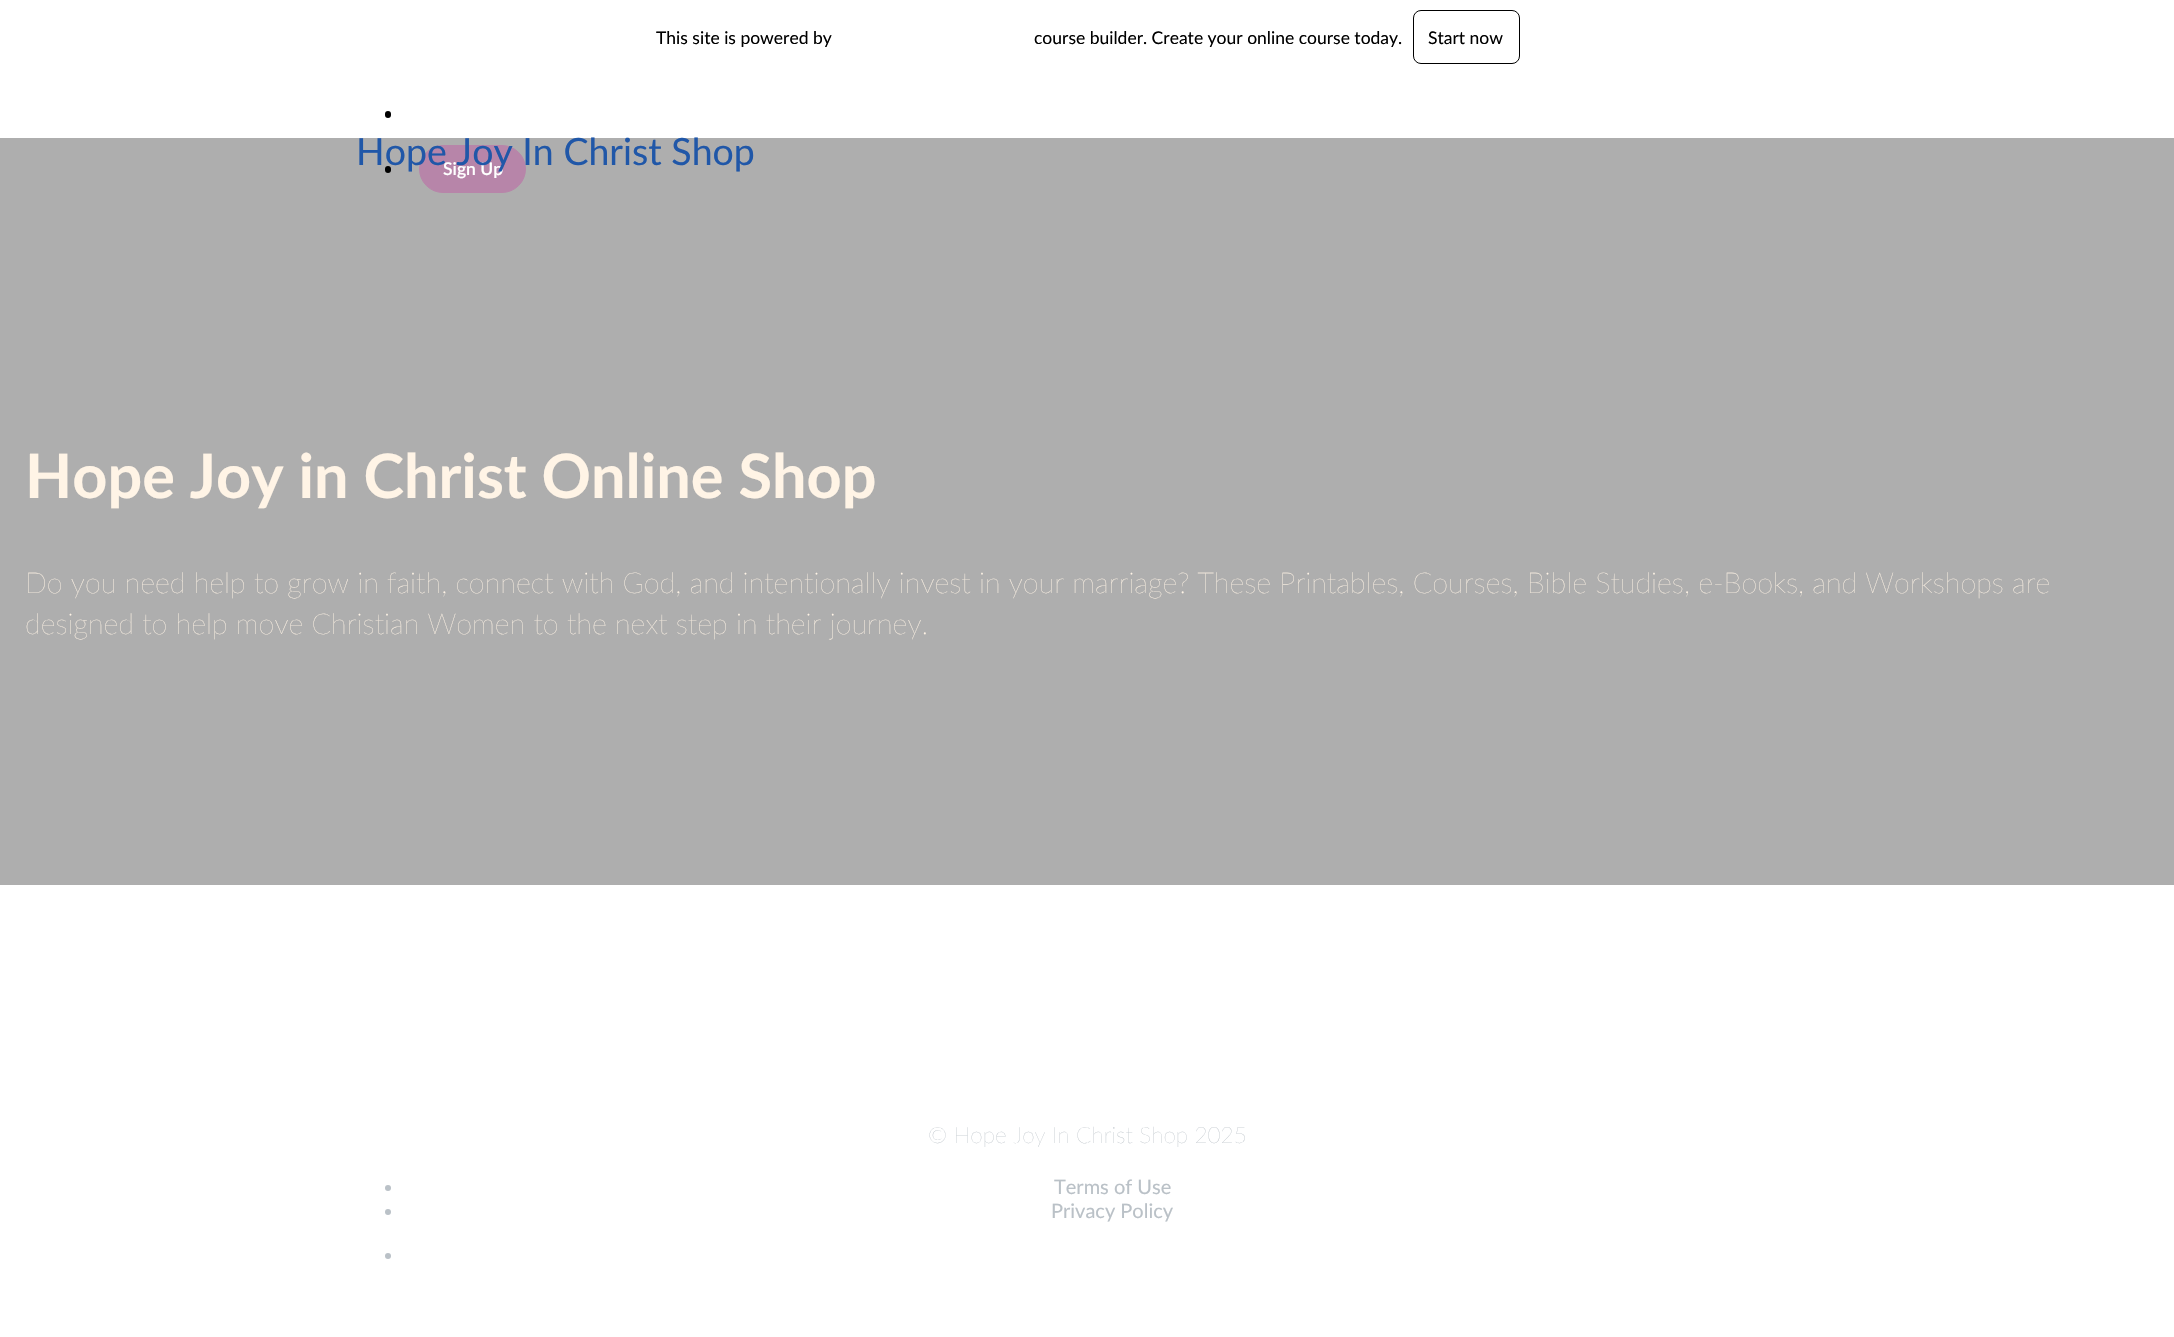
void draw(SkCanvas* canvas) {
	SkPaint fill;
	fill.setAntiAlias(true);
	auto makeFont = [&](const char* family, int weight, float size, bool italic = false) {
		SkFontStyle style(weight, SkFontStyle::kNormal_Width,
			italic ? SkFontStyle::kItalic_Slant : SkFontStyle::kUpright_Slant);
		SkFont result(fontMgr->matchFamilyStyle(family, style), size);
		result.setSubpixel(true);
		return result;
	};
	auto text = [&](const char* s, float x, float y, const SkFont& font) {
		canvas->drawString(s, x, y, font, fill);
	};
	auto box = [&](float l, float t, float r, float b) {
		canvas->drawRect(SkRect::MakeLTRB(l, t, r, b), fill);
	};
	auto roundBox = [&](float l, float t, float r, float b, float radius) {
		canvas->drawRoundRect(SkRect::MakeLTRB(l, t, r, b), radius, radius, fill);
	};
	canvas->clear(0xFFFFFFFF);
	fill.setStyle(SkPaint::kStroke_Style);
	fill.setStrokeWidth(1);
	fill.setColor(0xFF000000);
	canvas->drawRoundRect(SkRect::MakeLTRB(1413.5f, 10.5f, 1519.5f, 63.5f), 7.5f, 7.5f, fill);
	fill.setStyle(SkPaint::kFill_Style);
	roundBox(385, 111, 391, 118, 3);
	fill.setColor(0xFFAEAEAE);
	box(0, 138, 2174, 885);
	fill.setColor(0xFF000000);
	roundBox(385, 166, 391, 173, 3);
	fill.setColor(0xFFB785A9);
	canvas->drawRoundRect(SkRect::MakeLTRB(419.5f, 145.5f, 525.5f, 192.5f), 23.5f, 23.5f, fill);
	fill.setStyle(SkPaint::kStroke_Style);
	canvas->drawRoundRect(SkRect::MakeLTRB(419.5f, 145.5f, 525.5f, 192.5f), 23.5f, 23.5f, fill);
	fill.setStyle(SkPaint::kFill_Style);
	fill.setColor(0xFFBAC1C7);
	canvas->drawCircle(388, 1188, 3, fill);
	canvas->drawCircle(388, 1212, 3, fill);
	canvas->drawCircle(388, 1256, 3, fill);
	auto font1 = makeFont("Lato", 400, 17.5f);
	fill.setColor(0xFF000000);
	text("This site is powered by", 656, 44, font1);
	text("course builder. Create your online course today.", 1034, 44, font1);
	text("Start now", 1428, 44, font1);
	auto font2 = makeFont("Lato", 600, 17.5f);
	fill.setColor(0xFFFFFFFF);
	text("Sign Up", 443, 175, font2);
	auto font3 = makeFont("Lato", 400, 37.5f);
	fill.setColor(0xFF2057A8);
	text("Hope Joy In Christ Shop", 356, 165, font3);
	auto font4 = makeFont("Lato", 700, 61.25f);
	fill.setColor(0xFFFFF4E6);
	text("Hope Joy in Christ Online Shop", 25, 498, font4);
	auto font5 = makeFont("Lato", 200, 28.75f);
	text("Do you need help to grow in faith, connect with God, and intentionally invest in your marriage? These Printables, Courses, Bible Studies, e-Books, and Workshops are", 25, 593, font5);
	text("designed to help move Christian Women to the next step in their journey.", 25, 634, font5);
	auto font6 = makeFont("Lato", 200, 22.5f);
	fill.setColor(0xFFBAC1C7);
	text("© Hope Joy In Christ Shop 2025", 928, 1143, font6);
	auto font7 = makeFont("Lato", 400, 20);
	text("Terms of Use", 1054, 1194, font7);
	text("Privacy Policy", 1051, 1218, font7);
}
